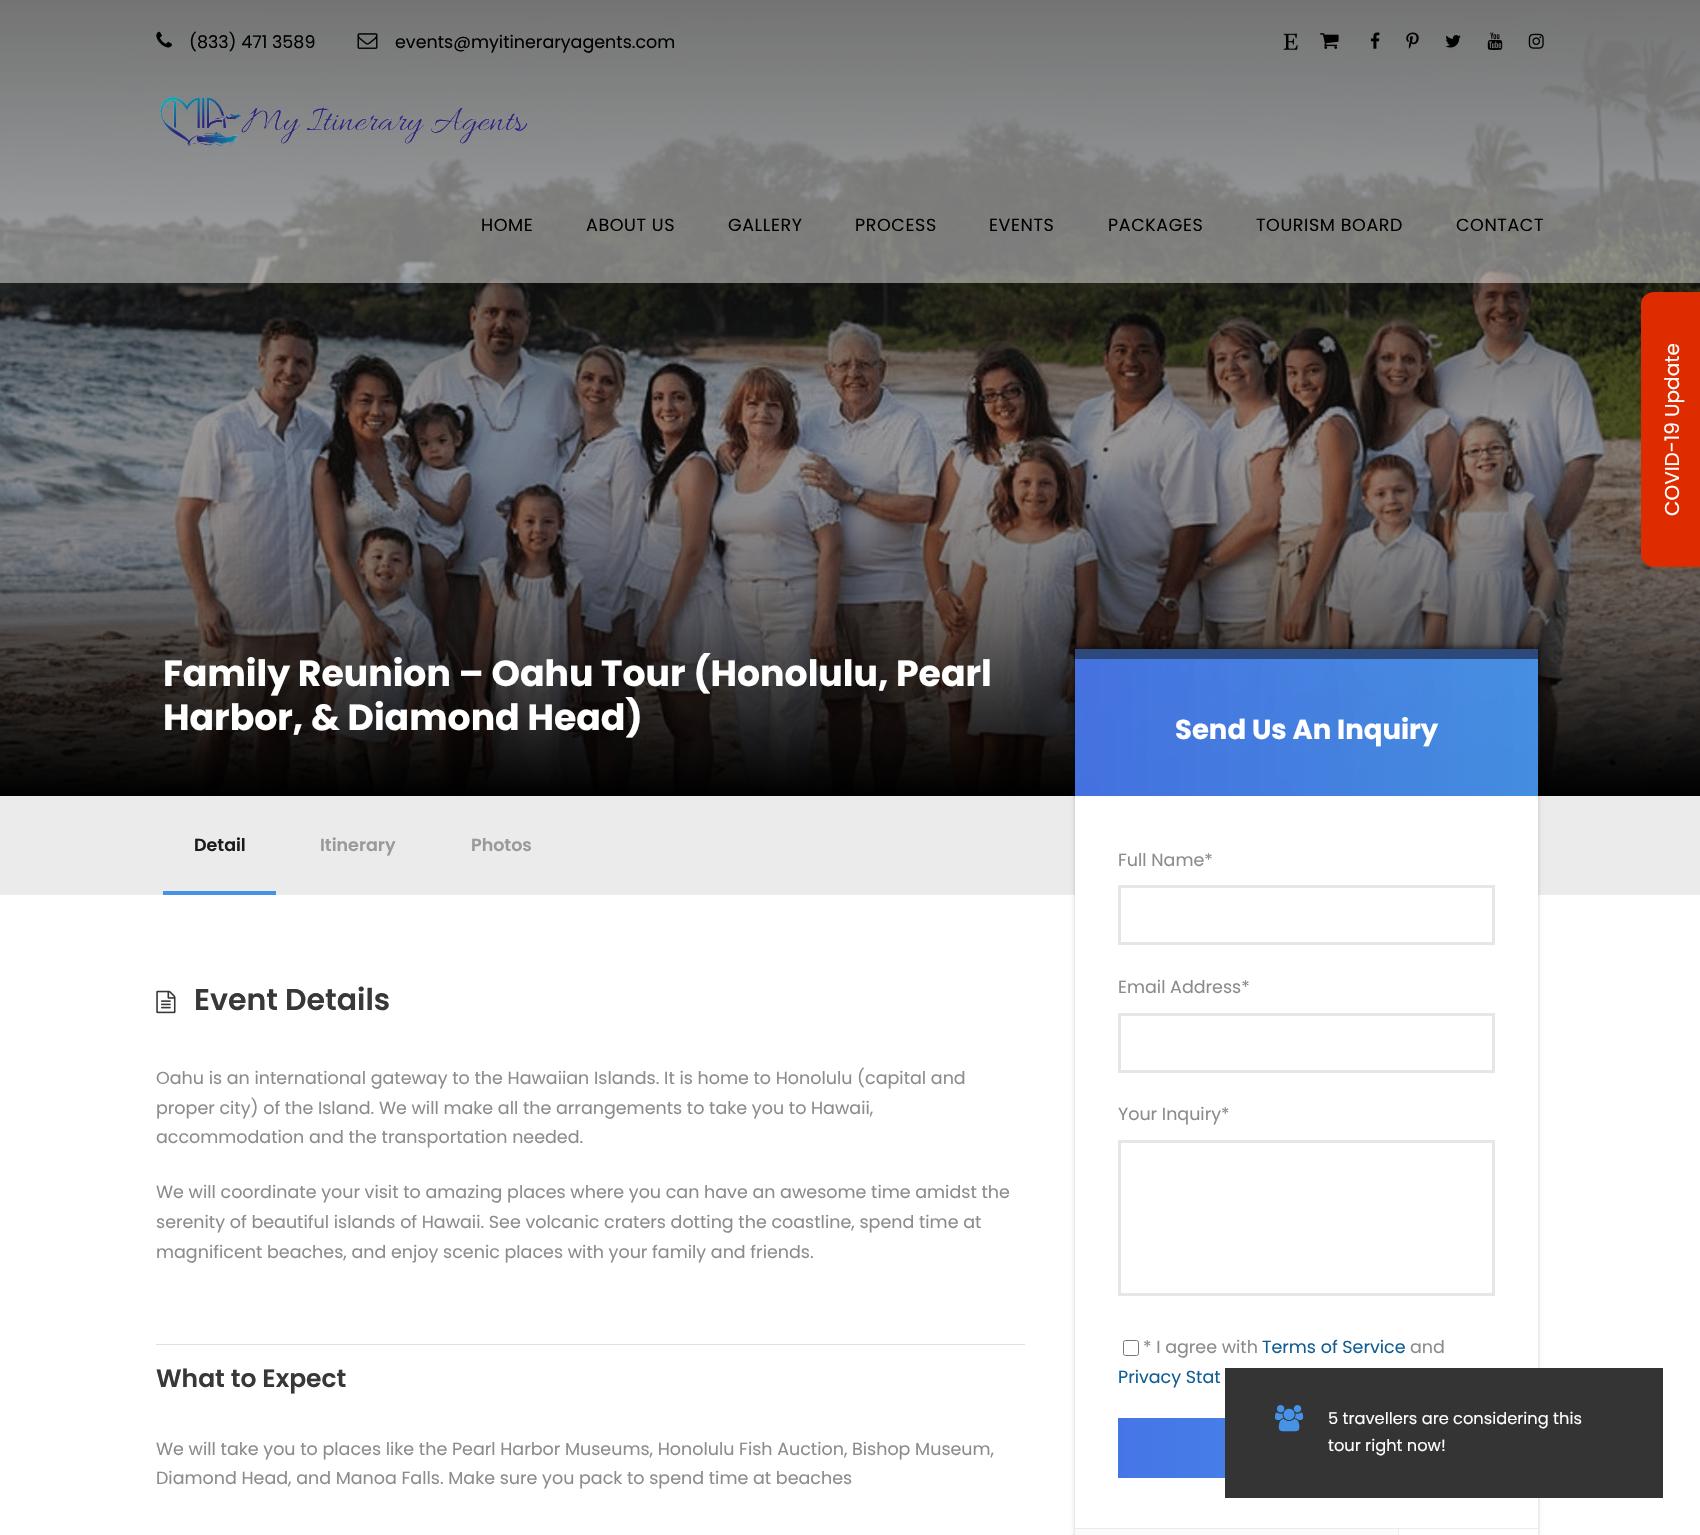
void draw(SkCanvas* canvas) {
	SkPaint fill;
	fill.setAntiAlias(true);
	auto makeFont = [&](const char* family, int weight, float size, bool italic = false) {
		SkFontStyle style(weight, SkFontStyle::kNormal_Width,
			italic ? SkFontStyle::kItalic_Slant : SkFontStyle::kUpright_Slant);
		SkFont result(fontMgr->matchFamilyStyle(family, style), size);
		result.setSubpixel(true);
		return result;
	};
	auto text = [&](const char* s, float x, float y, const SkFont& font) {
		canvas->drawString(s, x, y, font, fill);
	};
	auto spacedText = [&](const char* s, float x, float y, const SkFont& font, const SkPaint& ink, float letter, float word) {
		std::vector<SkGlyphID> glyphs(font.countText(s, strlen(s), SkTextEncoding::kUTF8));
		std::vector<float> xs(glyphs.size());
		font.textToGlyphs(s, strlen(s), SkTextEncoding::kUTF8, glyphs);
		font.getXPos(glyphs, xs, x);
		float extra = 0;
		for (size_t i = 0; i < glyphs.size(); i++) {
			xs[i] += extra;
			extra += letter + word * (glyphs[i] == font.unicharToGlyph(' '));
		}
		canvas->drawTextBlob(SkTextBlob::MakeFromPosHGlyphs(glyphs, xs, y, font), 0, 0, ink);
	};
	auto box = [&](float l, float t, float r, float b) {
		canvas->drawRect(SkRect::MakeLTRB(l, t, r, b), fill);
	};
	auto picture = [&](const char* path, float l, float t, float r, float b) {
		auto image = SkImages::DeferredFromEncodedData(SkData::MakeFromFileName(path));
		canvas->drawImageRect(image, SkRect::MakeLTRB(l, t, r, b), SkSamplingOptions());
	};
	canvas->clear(0xFFFFFFFF);
	picture("image10.png", 0, 0, 1700, 796);
	fill.setColor(0x73FFFFFF);
	box(0, 0, 1700, 83);
	picture("image0.png", 156, 31, 172, 48);
	picture("image1.png", 357, 33, 378, 49);
	picture("image2.png", 1283, 33, 1298, 50);
	picture("image3.png", 1320, 33, 1339, 49);
	picture("image4.png", 1370, 32, 1380, 49);
	picture("image5.png", 1406, 32, 1419, 49);
	picture("image6.png", 1445, 35, 1461, 48);
	picture("image7.png", 1487, 32, 1503, 50);
	picture("image8.png", 1528, 33, 1544, 49);
	box(0, 83, 1700, 283);
	picture("image9.png", 160, 97, 528, 146);
	canvas->save();
	canvas->clipPath(SkPathBuilder(SkPathFillType::kEvenOdd).moveTo(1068, 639).lineTo(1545, 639).lineTo(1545, 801).lineTo(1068, 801).close().moveTo(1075, 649).lineTo(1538, 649).lineTo(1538, 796).lineTo(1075, 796).close().detach(), true);
	fill.setColor(0x33000000);
	fill.setMaskFilter(SkMaskFilter::MakeBlur(kNormal_SkBlurStyle, 2));
	canvas->drawRect(SkRect::MakeLTRB(1075, 646, 1538, 794), fill);
	fill.setMaskFilter(nullptr);
	canvas->restore();
	fill.setColor(0xE62C487A);
	box(1075, 649, 1538, 659);
	{
		const SkColor colors[] = {0xCC4675E7, 0xCC4692E7};
		const float stops[] = {0, 1};
		const SkPoint ends[] = {{1075, 728}, {1538, 728}};
		fill.setShader(SkGradientShader::MakeLinear(ends, colors, stops, 2, SkTileMode::kClamp));
		fill.setAlpha(255);
	}
	box(1075, 659, 1538, 796);
	fill.setShader(nullptr);
	fill.setColor(0xFFEBEBEB);
	box(0, 796, 1700, 895);
	fill.setColor(0xFF4692E7);
	box(163, 891, 276, 895);
	picture("image11.png", 156, 990, 176, 1014);
	fill.setColor(0xFFE1E1E1);
	box(156, 1344, 1025, 1345);
	canvas->save();
	canvas->clipPath(SkPathBuilder(SkPathFillType::kEvenOdd).moveTo(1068, 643).lineTo(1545, 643).lineTo(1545, 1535).lineTo(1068, 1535).close().moveTo(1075, 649).lineTo(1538, 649).lineTo(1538, 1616).lineTo(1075, 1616).close().detach(), true);
	fill.setColor(0x33000000);
	fill.setMaskFilter(SkMaskFilter::MakeBlur(kNormal_SkBlurStyle, 2));
	canvas->drawRect(SkRect::MakeLTRB(1075, 650, 1538, 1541), fill);
	fill.setMaskFilter(nullptr);
	canvas->restore();
	canvas->save();
	canvas->clipPath(SkPathBuilder(SkPathFillType::kEvenOdd).moveTo(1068, 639).lineTo(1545, 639).lineTo(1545, 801).lineTo(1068, 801).close().moveTo(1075, 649).lineTo(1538, 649).lineTo(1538, 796).lineTo(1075, 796).close().detach(), true);
	fill.setMaskFilter(SkMaskFilter::MakeBlur(kNormal_SkBlurStyle, 2));
	canvas->drawRect(SkRect::MakeLTRB(1075, 646, 1538, 794), fill);
	fill.setMaskFilter(nullptr);
	canvas->restore();
	fill.setColor(0xE62C487A);
	box(1075, 649, 1538, 659);
	{
		const SkColor colors[] = {0xCC4675E7, 0xCC4692E7};
		const float stops[] = {0, 1};
		const SkPoint ends[] = {{1075, 728}, {1538, 728}};
		fill.setShader(SkGradientShader::MakeLinear(ends, colors, stops, 2, SkTileMode::kClamp));
		fill.setAlpha(255);
	}
	box(1075, 659, 1538, 796);
	fill.setShader(nullptr);
	fill.setColor(0xFFFFFFFF);
	box(1075, 796, 1538, 1535);
	fill.setStyle(SkPaint::kStroke_Style);
	fill.setStrokeWidth(3);
	fill.setColor(0xFFE6E6E6);
	canvas->drawRect(SkRect::MakeLTRB(1119.5f, 886.5f, 1493.5f, 943.5f), fill);
	canvas->drawRect(SkRect::MakeLTRB(1119.5f, 1014.5f, 1493.5f, 1071.5f), fill);
	canvas->drawRect(SkRect::MakeLTRB(1119.5f, 1141.5f, 1493.5f, 1294.5f), fill);
	fill.setStrokeWidth(1);
	fill.setColor(0xFF767676);
	canvas->drawRoundRect(SkRect::MakeLTRB(1123.5f, 1340.5f, 1138.5f, 1355.5f), 2, 2, fill);
	fill.setStyle(SkPaint::kFill_Style);
	{
		const SkColor colors[] = {0xFF4675E7, 0xFF4692E7};
		const float stops[] = {0, 1};
		const SkPoint ends[] = {{1118, 1448}, {1495, 1448}};
		fill.setShader(SkGradientShader::MakeLinear(ends, colors, stops, 2, SkTileMode::kClamp));
		fill.setAlpha(255);
	}
	box(1118, 1418, 1225, 1478);
	fill.setShader(nullptr);
	fill.setColor(0xFFEBEBEB);
	box(1075, 1528, 1538, 1529);
	fill.setColor(0xFFFBFBFB);
	box(1075, 1529, 1399, 1535);
	fill.setColor(0xFFEBEBEB);
	box(1398, 1529, 1399, 1535);
	fill.setColor(0xFF343434);
	box(1225, 1368, 1663, 1498);
	picture("image12.png", 1275, 1405, 1304, 1432);
	fill.setColor(0xFFDF2B00);
	canvas->drawPath(SkPathBuilder().moveTo(1641, 554).lineTo(1641, 304).cubicTo(1641, 297, 1647, 292, 1654, 292).lineTo(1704, 292).lineTo(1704, 567).lineTo(1654, 567).cubicTo(1647, 567, 1641, 561, 1641, 554).close().detach(), fill);
	auto font1 = makeFont("Poppins", 400, 17.5f);
	fill.setColor(0xFF000000);
	text("(833) 471 3589", 189, 48, font1);
	text("events@myitineraryagents.com", 395, 48, font1);
	spacedText("HOME", 481, 231, font1, fill, 0.6f, 0);
	spacedText("ABOUT US", 586, 231, font1, fill, 0.6f, 0);
	spacedText("GALLERY", 728, 231, font1, fill, 0.6f, 0);
	spacedText("PROCESS", 855, 231, font1, fill, 0.6f, 0);
	spacedText("EVENTS", 989, 231, font1, fill, 0.6f, 0);
	spacedText("PACKAGES", 1108, 231, font1, fill, 0.6f, 0);
	spacedText("TOURISM BOARD", 1256, 231, font1, fill, 0.6f, 0);
	spacedText("CONTACT", 1456, 231, font1, fill, 0.6f, 0);
	auto font2 = makeFont("Poppins", 700, 36.25f);
	fill.setColor(0xFFFFFFFF);
	text("Family Reunion – Oahu Tour (Honolulu, Pearl", 163, 686, font2);
	text("Harbor, & Diamond Head)", 163, 730, font2);
	auto font3 = makeFont("Poppins", 600, 17.5f);
	fill.setColor(0xFF1B1B1B);
	text("Detail", 194, 851, font3);
	fill.setColor(0xFF9A9A9A);
	text("Itinerary", 320, 851, font3);
	text("Photos", 471, 851, font3);
	auto font4 = makeFont("Poppins", 600, 30);
	fill.setColor(0xFF383838);
	text("Event Details", 194, 1010, font4);
	fill.setColor(0xFF8C8C8C);
	text("Oahu is an international gateway to the Hawaiian Islands. It is home to Honolulu (capital and", 156, 1084, font1);
	text("proper city) of the Island. We will make all the arrangements to take you to Hawaii,", 156, 1114, font1);
	text("accommodation and the transportation needed.", 156, 1143, font1);
	text("We will coordinate your visit to amazing places where you can have an awesome time amidst the", 156, 1198, font1);
	text("serenity of beautiful islands of Hawaii. See volcanic craters dotting the coastline, spend time at", 156, 1228, font1);
	text("magnificent beaches, and enjoy scenic places with your family and friends.", 156, 1258, font1);
	auto font5 = makeFont("Poppins", 600, 25);
	fill.setColor(0xFF383838);
	text("What to Expect", 156, 1387, font5);
	fill.setColor(0xFF8C8C8C);
	text("We will take you to places like the Pearl Harbor Museums, Honolulu Fish Auction, Bishop Museum,", 156, 1455, font1);
	text("Diamond Head, and Manoa Falls. Make sure you pack to spend time at beaches", 156, 1484, font1);
	auto font6 = makeFont("Poppins", 700, 27.5f);
	fill.setColor(0xFFFFFFFF);
	text("Send Us An Inquiry", 1175, 739, font6);
	fill.setColor(0xFF8C8C8C);
	text("Full Name*", 1118, 866, font1);
	text("Email Address*", 1118, 993, font1);
	text("Your Inquiry*", 1118, 1120, font1);
	text("* I agree with", 1143, 1353, font1);
	fill.setColor(0xFF125E93);
	text("Terms of Service", 1262, 1353, font1);
	fill.setColor(0xFF8C8C8C);
	text("and", 1410, 1353, font1);
	fill.setColor(0xFF125E93);
	text("Privacy Stat", 1118, 1383, font1);
	auto font7 = makeFont("Poppins", 400, 16.25f);
	fill.setColor(0xFFFFFFFF);
	text("5 travellers are considering this", 1328, 1424, font7);
	text("tour right now!", 1328, 1451, font7);
	auto font8 = makeFont("Poppins", 400, 20);
	canvas->save();
	canvas->rotate(-90, 1679, 516);
	text("COVID-19 Update", 1679, 516, font8);
	canvas->restore();
}
